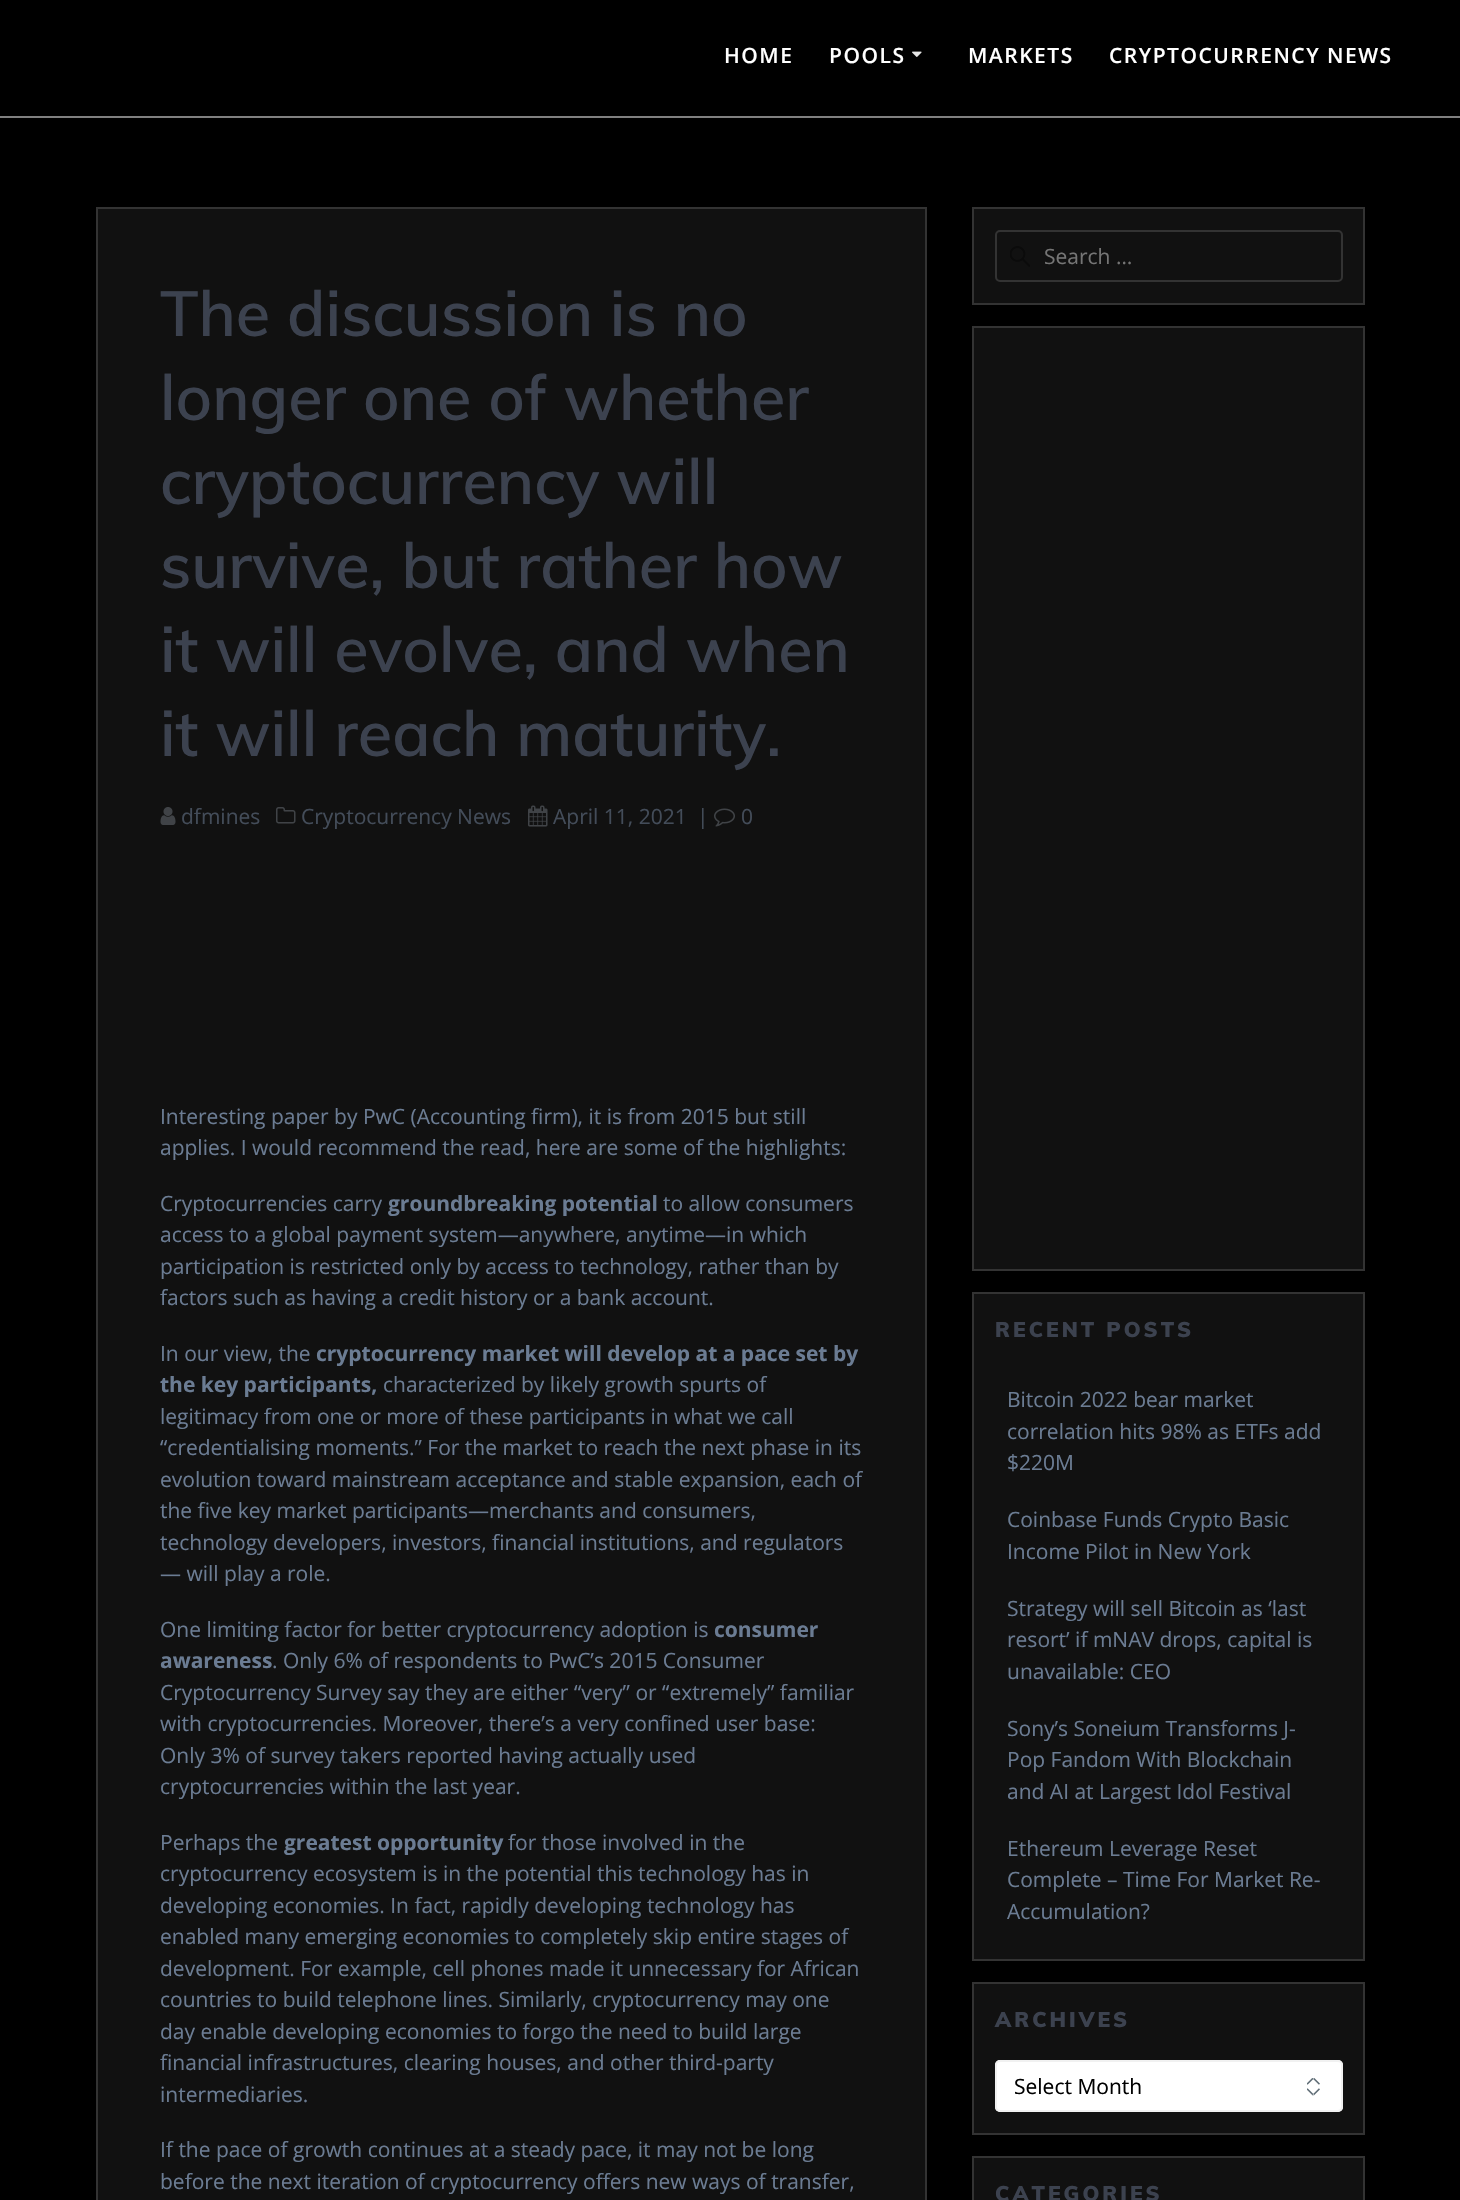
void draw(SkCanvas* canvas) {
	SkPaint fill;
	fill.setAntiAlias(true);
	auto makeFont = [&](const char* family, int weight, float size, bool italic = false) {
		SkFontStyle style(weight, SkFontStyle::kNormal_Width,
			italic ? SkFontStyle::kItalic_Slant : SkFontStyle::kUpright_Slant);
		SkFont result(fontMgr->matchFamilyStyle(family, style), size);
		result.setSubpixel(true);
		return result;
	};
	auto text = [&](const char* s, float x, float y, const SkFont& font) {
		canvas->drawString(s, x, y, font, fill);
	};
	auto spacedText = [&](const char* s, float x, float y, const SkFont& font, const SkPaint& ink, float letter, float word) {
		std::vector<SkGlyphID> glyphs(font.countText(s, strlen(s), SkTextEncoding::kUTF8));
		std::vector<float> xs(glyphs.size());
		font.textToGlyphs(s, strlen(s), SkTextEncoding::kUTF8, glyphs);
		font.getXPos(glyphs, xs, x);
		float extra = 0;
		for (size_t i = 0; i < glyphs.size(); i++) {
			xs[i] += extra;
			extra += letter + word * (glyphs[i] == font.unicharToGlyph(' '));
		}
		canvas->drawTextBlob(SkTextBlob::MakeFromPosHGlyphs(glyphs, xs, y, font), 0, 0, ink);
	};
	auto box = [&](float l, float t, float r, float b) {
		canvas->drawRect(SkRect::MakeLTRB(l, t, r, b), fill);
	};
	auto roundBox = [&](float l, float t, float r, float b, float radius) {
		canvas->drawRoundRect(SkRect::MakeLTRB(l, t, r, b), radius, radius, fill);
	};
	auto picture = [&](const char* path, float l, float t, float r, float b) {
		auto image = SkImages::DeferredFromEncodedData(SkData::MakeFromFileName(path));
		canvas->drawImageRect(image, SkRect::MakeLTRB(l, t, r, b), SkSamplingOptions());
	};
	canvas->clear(0xFF000000);
	fill.setColor(0xFF808080);
	box(0, 116, 1460, 118);
	picture("image0.png", 912, 51, 922, 57);
	fill.setColor(0xFF111111);
	canvas->drawRect(SkRect::MakeLTRB(97, 208, 926, 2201), fill);
	fill.setStyle(SkPaint::kStroke_Style);
	fill.setStrokeWidth(2);
	fill.setColor(0xFF333333);
	canvas->drawRect(SkRect::MakeLTRB(97, 208, 926, 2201), fill);
	picture("image1.png", 160, 807, 176, 825);
	picture("image2.png", 276, 807, 296, 824);
	picture("image3.png", 528, 805, 548, 827);
	picture("image4.png", 714, 808, 735, 827);
	fill.setStyle(SkPaint::kFill_Style);
	fill.setColor(0xFF111111);
	canvas->drawRect(SkRect::MakeLTRB(973, 208, 1364, 304), fill);
	fill.setStyle(SkPaint::kStroke_Style);
	fill.setColor(0xFF333333);
	canvas->drawRect(SkRect::MakeLTRB(973, 208, 1364, 304), fill);
	picture("image5.png", 1010, 246, 1030, 267);
	canvas->drawRoundRect(SkRect::MakeLTRB(996, 231, 1342, 281), 4, 4, fill);
	fill.setStyle(SkPaint::kFill_Style);
	fill.setColor(0xFF111111);
	canvas->drawRect(SkRect::MakeLTRB(973, 327, 1364, 1270), fill);
	fill.setStyle(SkPaint::kStroke_Style);
	fill.setColor(0xFF333333);
	canvas->drawRect(SkRect::MakeLTRB(973, 327, 1364, 1270), fill);
	fill.setStyle(SkPaint::kFill_Style);
	fill.setColor(0xFF111111);
	canvas->drawRect(SkRect::MakeLTRB(973, 1293, 1364, 1960), fill);
	fill.setStyle(SkPaint::kStroke_Style);
	fill.setColor(0xFF333333);
	canvas->drawRect(SkRect::MakeLTRB(973, 1293, 1364, 1960), fill);
	fill.setStyle(SkPaint::kFill_Style);
	fill.setColor(0xFF111111);
	canvas->drawRect(SkRect::MakeLTRB(973, 1983, 1364, 2134), fill);
	fill.setStyle(SkPaint::kStroke_Style);
	fill.setColor(0xFF333333);
	canvas->drawRect(SkRect::MakeLTRB(973, 1983, 1364, 2134), fill);
	fill.setStyle(SkPaint::kFill_Style);
	fill.setColor(0xFFFFFFFF);
	roundBox(995, 2060, 1343, 2112, 5);
	picture("image6.png", 1307, 2078, 1320, 2096);
	fill.setStyle(SkPaint::kStroke_Style);
	fill.setColor(0xFFF1F1F1);
	canvas->drawRoundRect(SkRect::MakeLTRB(996, 2061, 1342, 2111), 4, 4, fill);
	fill.setStyle(SkPaint::kFill_Style);
	fill.setColor(0xFF111111);
	canvas->drawRect(SkRect::MakeLTRB(973, 2157, 1364, 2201), fill);
	fill.setStyle(SkPaint::kStroke_Style);
	fill.setColor(0xFF333333);
	canvas->drawRect(SkRect::MakeLTRB(973, 2157, 1364, 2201), fill);
	auto font1 = makeFont("Open Sans", 600, 21);
	fill.setStyle(SkPaint::kFill_Style);
	fill.setColor(0xFFFFFFFF);
	spacedText("HOME", 724, 63, font1, fill, 1.5f, 0);
	spacedText("POOLS", 829, 63, font1, fill, 1.5f, 0);
	spacedText("MARKETS", 968, 63, font1, fill, 1.5f, 0);
	spacedText("CRYPTOCURRENCY NEWS", 1109, 63, font1, fill, 1.5f, 0);
	auto font2 = makeFont("Muli", 600, 63);
	fill.setColor(0xFF3C424F);
	text("The discussion is no", 160, 336, font2);
	text("longer one of whether", 160, 420, font2);
	text("cryptocurrency will", 160, 504, font2);
	text("survive, but rather how", 160, 588, font2);
	text("it will evolve, and when", 160, 672, font2);
	text("it will reach maturity.", 160, 756, font2);
	auto font3 = makeFont("Open Sans", 400, 21);
	fill.setColor(0xFF434C59);
	text("dfmines", 181, 824, font3);
	text("Cryptocurrency News", 301, 824, font3);
	text("April 11, 2021", 553, 824, font3);
	text("|", 697, 824, font3);
	text("0", 741, 824, font3);
	fill.setColor(0xFF6B7C93);
	text("Interesting paper by PwC (Accounting firm), it is from 2015 but still", 160, 1124, font3);
	text("applies. I would recommend the read, here are some of the highlights:", 160, 1155, font3);
	text("Cryptocurrencies carry", 160, 1211, font3);
	auto font4 = makeFont("Open Sans", 700, 21);
	text("groundbreaking potential", 388, 1211, font4);
	text("to allow consumers", 663, 1211, font3);
	text("access to a global payment system—anywhere, anytime—in which", 160, 1242, font3);
	text("participation is restricted only by access to technology, rather than by", 160, 1274, font3);
	text("factors such as having a credit history or a bank account.", 160, 1305, font3);
	text("In our view, the", 160, 1361, font3);
	text("cryptocurrency market will develop at a pace set by", 316, 1361, font4);
	text("the key participants,", 160, 1392, font4);
	text("characterized by likely growth spurts of", 383, 1392, font3);
	text("legitimacy from one or more of these participants in what we call", 160, 1424, font3);
	text("“credentialising moments.” For the market to reach the next phase in its", 160, 1455, font3);
	text("evolution toward mainstream acceptance and stable expansion, each of", 160, 1487, font3);
	text("the five key market participants—merchants and consumers,", 160, 1518, font3);
	text("technology developers, investors, financial institutions, and regulators", 160, 1550, font3);
	text("— will play a role.", 160, 1581, font3);
	text("One limiting factor for better cryptocurrency adoption is", 160, 1637, font3);
	text("consumer", 714, 1637, font4);
	text("awareness", 160, 1668, font4);
	text(". Only 6% of respondents to PwC’s 2015 Consumer", 272, 1668, font3);
	text("Cryptocurrency Survey say they are either “very” or “extremely” familiar", 160, 1700, font3);
	text("with cryptocurrencies. Moreover, there’s a very confined user base:", 160, 1731, font3);
	text("Only 3% of survey takers reported having actually used", 160, 1763, font3);
	text("cryptocurrencies within the last year.", 160, 1794, font3);
	text("Perhaps the", 160, 1850, font3);
	text("greatest opportunity", 284, 1850, font4);
	text("for those involved in the", 508, 1850, font3);
	text("cryptocurrency ecosystem is in the potential this technology has in", 160, 1881, font3);
	text("developing economies. In fact, rapidly developing technology has", 160, 1913, font3);
	text("enabled many emerging economies to completely skip entire stages of", 160, 1944, font3);
	text("development. For example, cell phones made it unnecessary for African", 160, 1976, font3);
	text("countries to build telephone lines. Similarly, cryptocurrency may one", 160, 2007, font3);
	text("day enable developing economies to forgo the need to build large", 160, 2039, font3);
	text("financial infrastructures, clearing houses, and other third-party", 160, 2070, font3);
	text("intermediaries.", 160, 2102, font3);
	text("If the pace of growth continues at a steady pace, it may not be long", 160, 2157, font3);
	text("before the next iteration of cryptocurrency offers new ways of transfer,", 160, 2189, font3);
	fill.setColor(0xFF757575);
	text("Search …", 1044, 264, font3);
	auto font5 = makeFont("Muli", 900, 21);
	fill.setColor(0xFF3C424F);
	spacedText("RECENT POSTS", 995, 1337, font5, fill, 3, 0);
	fill.setColor(0xFF6B7C93);
	text("Bitcoin 2022 bear market", 1007, 1407, font3);
	text("correlation hits 98% as ETFs add", 1007, 1439, font3);
	text("$220M", 1007, 1470, font3);
	text("Coinbase Funds Crypto Basic", 1007, 1527, font3);
	text("Income Pilot in New York", 1007, 1559, font3);
	text("Strategy will sell Bitcoin as ‘last", 1007, 1616, font3);
	text("resort’ if mNAV drops, capital is", 1007, 1647, font3);
	text("unavailable: CEO", 1007, 1679, font3);
	text("Sony’s Soneium Transforms J-", 1007, 1736, font3);
	text("Pop Fandom With Blockchain", 1007, 1767, font3);
	text("and AI at Largest Idol Festival", 1007, 1799, font3);
	text("Ethereum Leverage Reset", 1007, 1856, font3);
	text("Complete – Time For Market Re-", 1007, 1887, font3);
	text("Accumulation?", 1007, 1919, font3);
	fill.setColor(0xFF3C424F);
	spacedText("ARCHIVES", 995, 2027, font5, fill, 3, 0);
	fill.setColor(0xFF000000);
	text("Select Month", 1014, 2094, font3);
	fill.setColor(0xFF3C424F);
	spacedText("CATEGORIES", 995, 2201, font5, fill, 3, 0);
}
